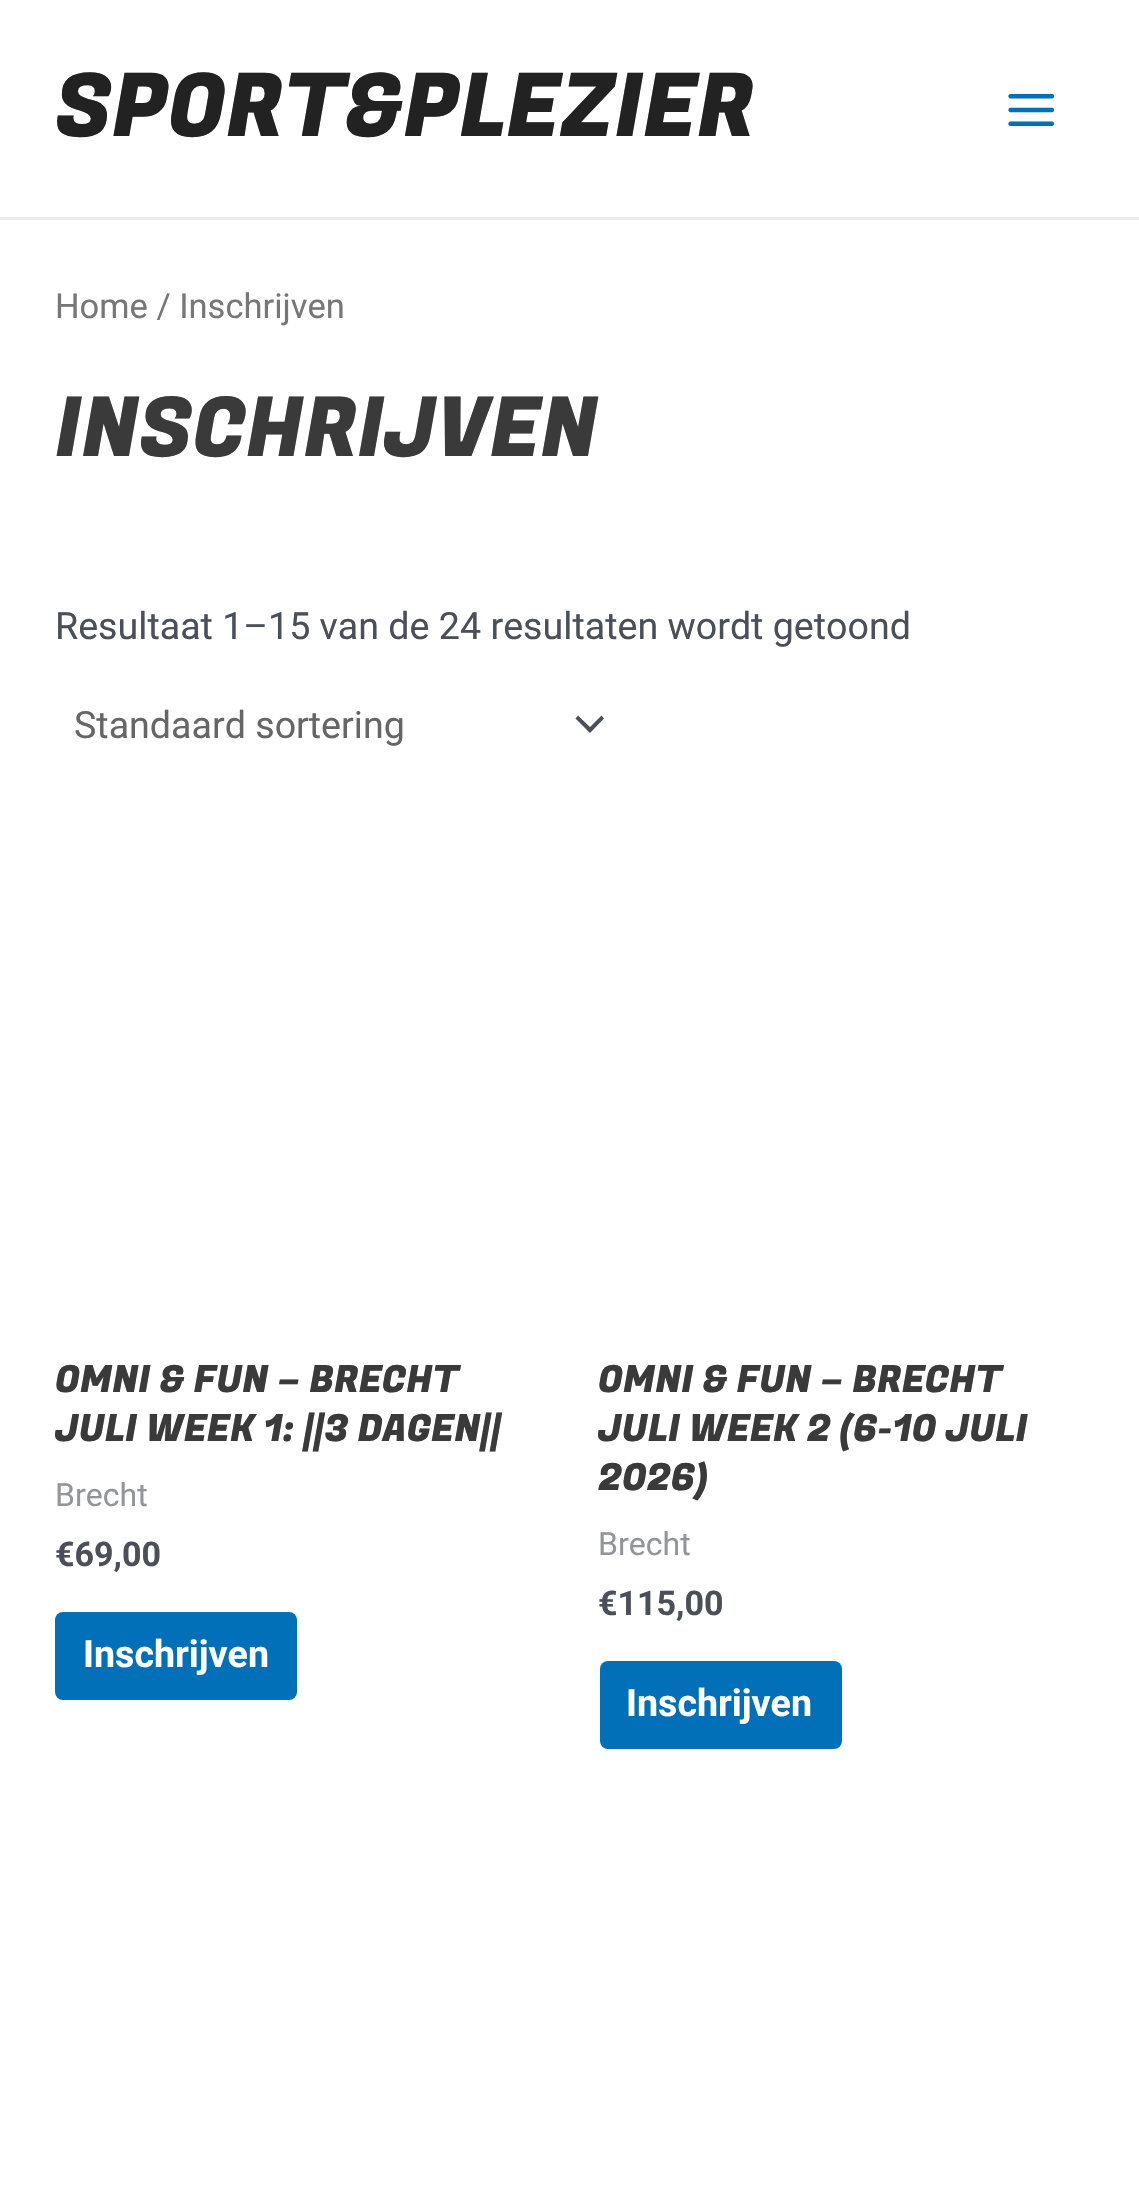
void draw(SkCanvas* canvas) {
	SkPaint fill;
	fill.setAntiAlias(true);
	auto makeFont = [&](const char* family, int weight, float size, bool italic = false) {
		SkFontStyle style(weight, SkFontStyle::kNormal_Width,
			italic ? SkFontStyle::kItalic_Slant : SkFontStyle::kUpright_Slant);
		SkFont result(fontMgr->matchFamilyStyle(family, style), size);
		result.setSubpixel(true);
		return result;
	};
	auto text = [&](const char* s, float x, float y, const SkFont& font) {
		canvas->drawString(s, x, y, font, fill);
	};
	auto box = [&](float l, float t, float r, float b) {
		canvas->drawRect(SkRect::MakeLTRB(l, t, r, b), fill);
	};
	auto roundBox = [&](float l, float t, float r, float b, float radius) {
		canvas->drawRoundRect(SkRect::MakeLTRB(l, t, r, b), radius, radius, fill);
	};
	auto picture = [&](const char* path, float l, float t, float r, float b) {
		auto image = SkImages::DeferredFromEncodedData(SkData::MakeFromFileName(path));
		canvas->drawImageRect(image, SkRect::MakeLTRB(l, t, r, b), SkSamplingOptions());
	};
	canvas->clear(0xFFFFFFFF);
	fill.setColor(0xFFEAEAEA);
	box(0, 217, 1139, 220);
	picture("image0.png", 1008, 93, 1055, 127);
	fill.setColor(0xFF4B4F58);
	canvas->drawPath(SkPathBuilder().moveTo(575.5f, 718.5f).lineTo(590, 733).lineTo(604, 718.5f).lineTo(601.5f, 715.5f).lineTo(590, 727).lineTo(578, 715.5f).close().detach(), fill);
	fill.setColor(0xFF0170B9);
	roundBox(55, 1612, 297, 1700, 8);
	roundBox(600, 1661, 842, 1749, 8);
	auto font1 = makeFont("Fugaz One", 400, 87.75f);
	fill.setColor(0xFF222222);
	text("SPORT&PLEZIER", 55, 136, font1);
	auto font2 = makeFont("Roboto", 400, 34.5f);
	fill.setColor(0xFF777777);
	text("Home / Inschrijven", 55, 318, font2);
	auto font3 = makeFont("Fugaz One", 400, 82.5f);
	fill.setColor(0xFF3A3A3A);
	text("INSCHRIJVEN", 55, 456, font3);
	auto font4 = makeFont("Roboto", 400, 37.6f);
	fill.setColor(0xFF4B4F58);
	text("Resultaat 1–15 van de 24 resultaten wordt getoond", 55, 639, font4);
	fill.setColor(0xFF666666);
	text("Standaard sortering", 74, 738, font4);
	auto font5 = makeFont("Fugaz One", 400, 37.6f);
	fill.setColor(0xFF3A3A3A);
	text("OMNI & FUN – BRECHT", 55, 1392, font5);
	text("JULI WEEK 1: ||3 DAGEN||", 55, 1441, font5);
	auto font6 = makeFont("Roboto", 400, 32);
	fill.setColor(0xFF93959B);
	text("Brecht", 55, 1506, font6);
	auto font7 = makeFont("Roboto", 700, 34);
	fill.setColor(0xFF4B4F58);
	text("€69,00", 55, 1566, font7);
	auto font8 = makeFont("Roboto", 700, 37.6f);
	fill.setColor(0xFFFFFFFF);
	text("Inschrijven", 83, 1667, font8);
	fill.setColor(0xFF3A3A3A);
	text("OMNI & FUN – BRECHT", 598, 1392, font5);
	text("JULI WEEK 2 (6-10 JULI", 598, 1441, font5);
	text("2026)", 598, 1490, font5);
	fill.setColor(0xFF93959B);
	text("Brecht", 598, 1555, font6);
	fill.setColor(0xFF4B4F58);
	text("€115,00", 598, 1615, font7);
	fill.setColor(0xFFFFFFFF);
	text("Inschrijven", 626, 1716, font8);
}
